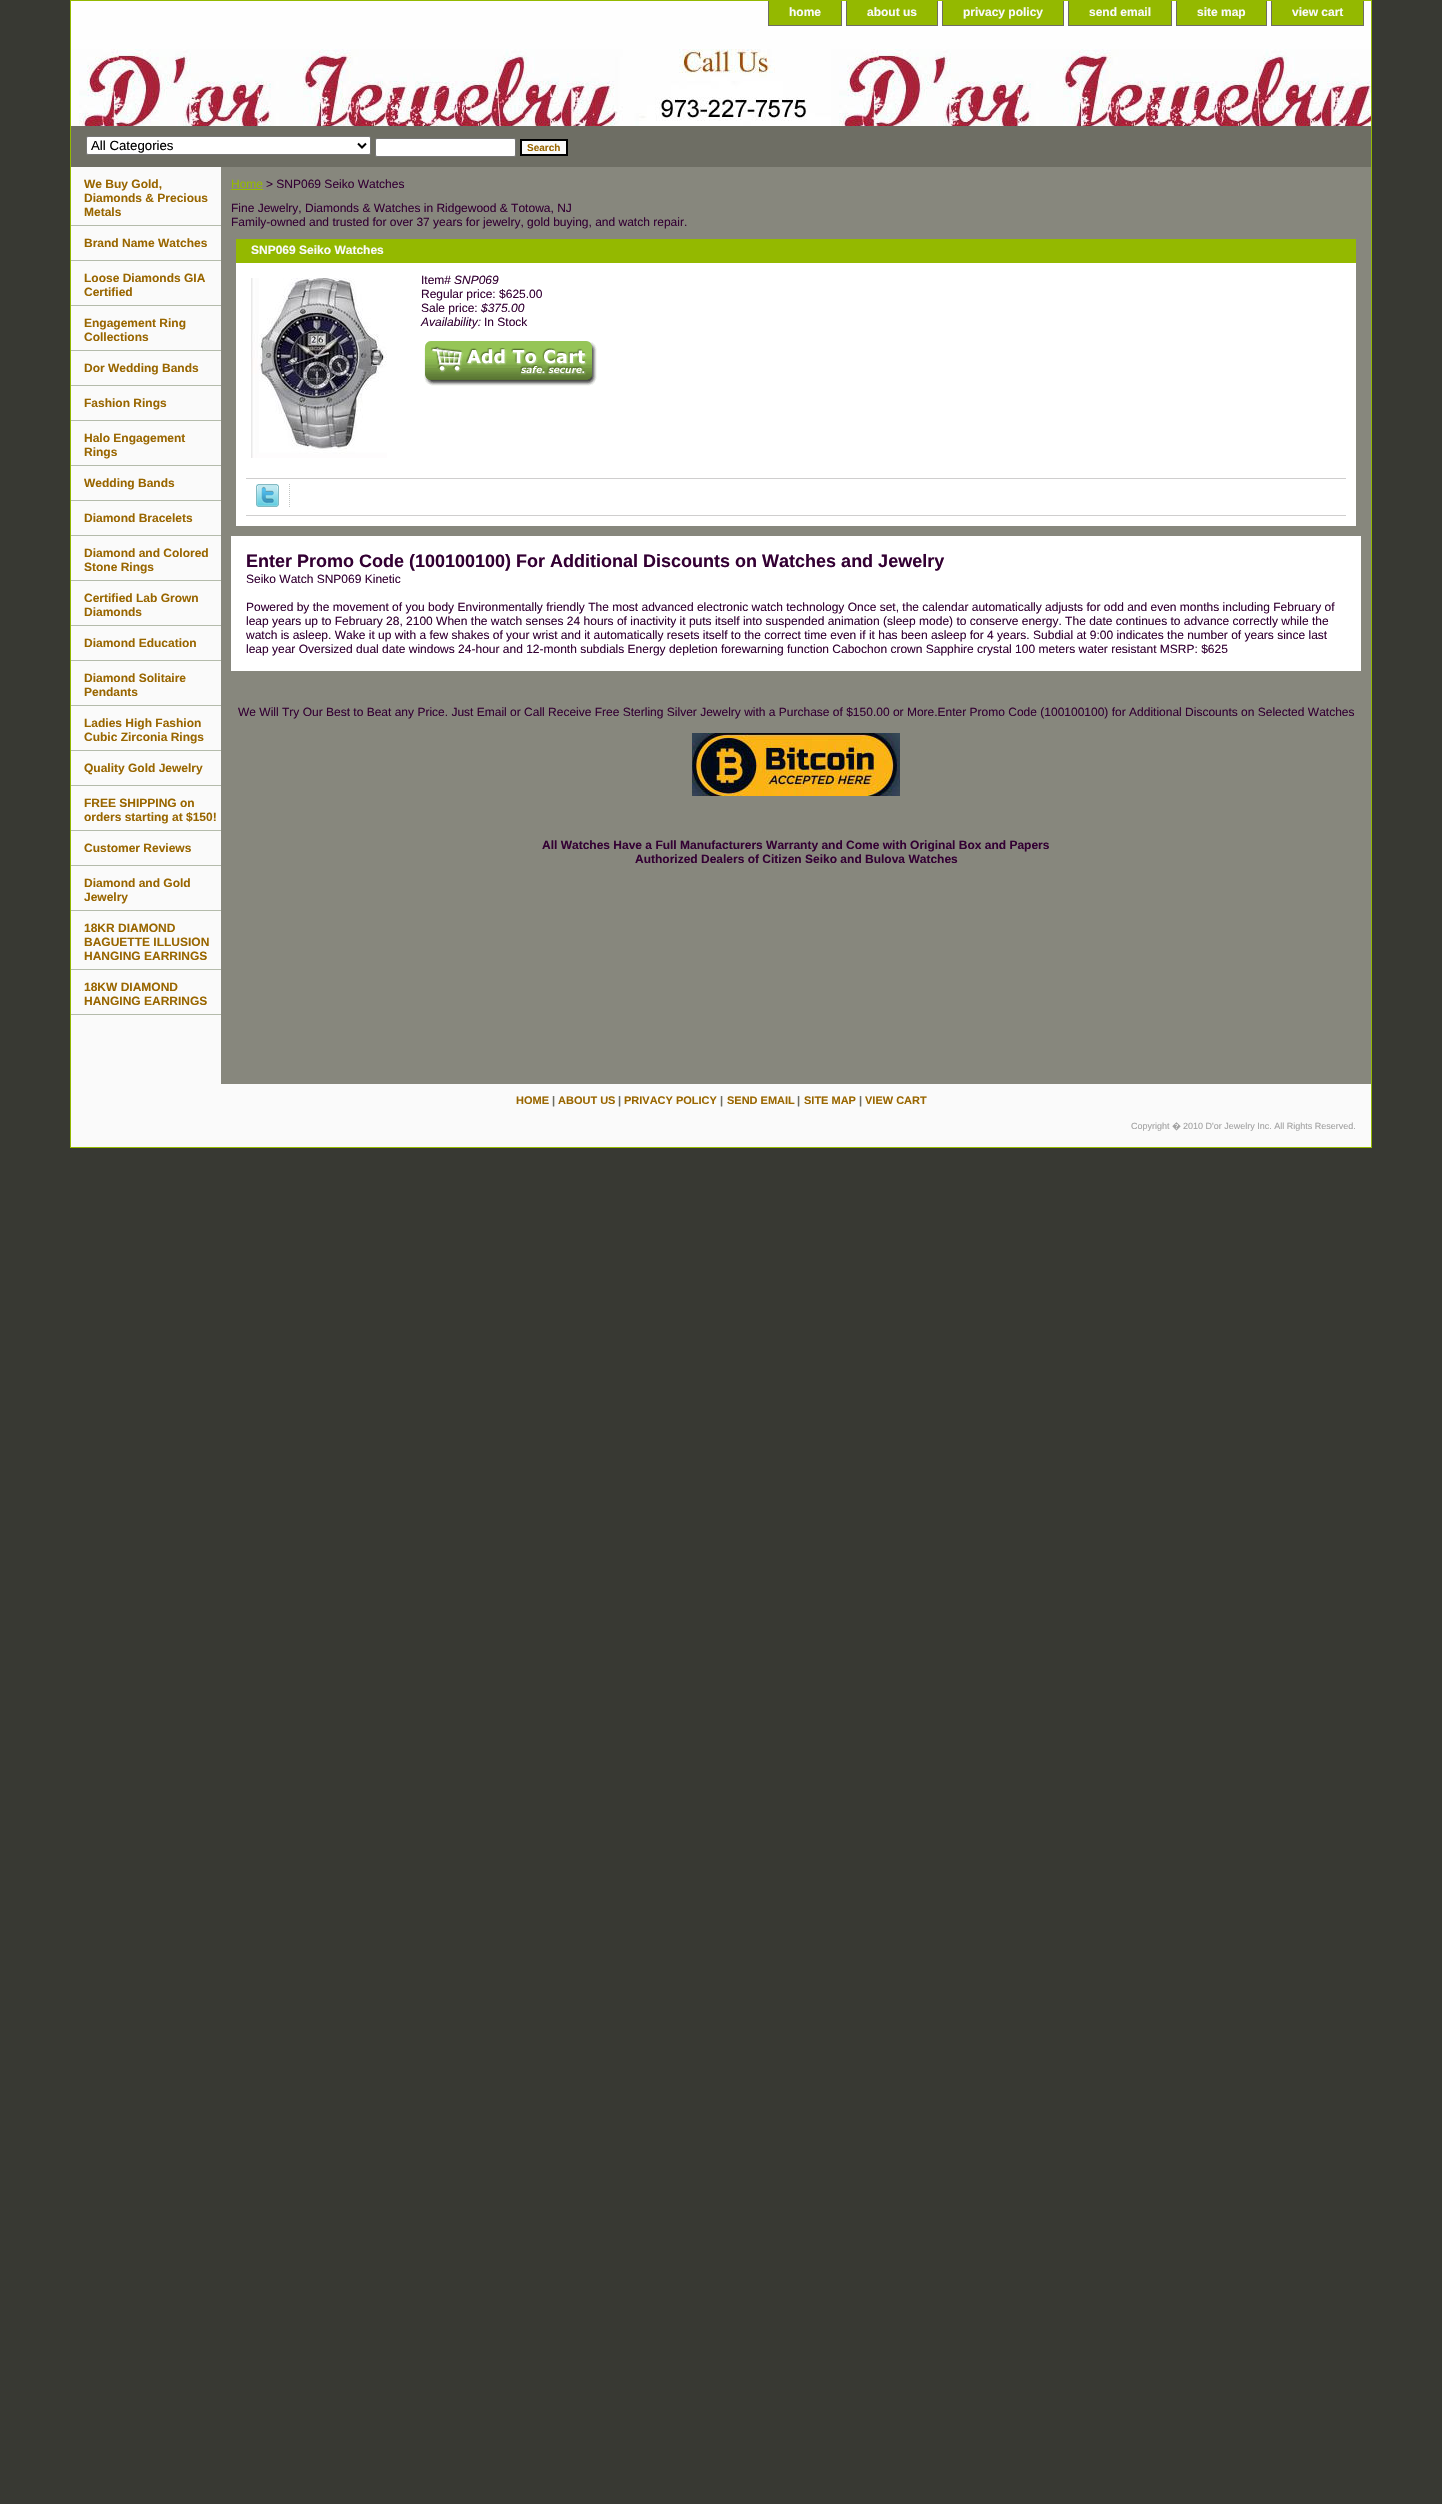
void draw(SkCanvas* canvas) {
	SkPaint fill;
	fill.setAntiAlias(true);
	auto makeFont = [&](const char* family, int weight, float size, bool italic = false) {
		SkFontStyle style(weight, SkFontStyle::kNormal_Width,
			italic ? SkFontStyle::kItalic_Slant : SkFontStyle::kUpright_Slant);
		SkFont result(fontMgr->matchFamilyStyle(family, style), size);
		result.setSubpixel(true);
		return result;
	};
	auto text = [&](const char* s, float x, float y, const SkFont& font) {
		canvas->drawString(s, x, y, font, fill);
	};
	auto box = [&](float l, float t, float r, float b) {
		canvas->drawRect(SkRect::MakeLTRB(l, t, r, b), fill);
	};
	auto picture = [&](const char* path, float l, float t, float r, float b) {
		auto image = SkImages::DeferredFromEncodedData(SkData::MakeFromFileName(path));
		canvas->drawImageRect(image, SkRect::MakeLTRB(l, t, r, b), SkSamplingOptions());
	};
	canvas->clear(0xFF383933);
	fill.setColor(0xFF87877D);
	box(221, 167, 1371, 1084);
	fill.setStyle(SkPaint::kStroke_Style);
	fill.setStrokeWidth(1);
	fill.setColor(0xFF94B900);
	canvas->drawRect(SkRect::MakeLTRB(70.5f, 0.5f, 1371.5f, 1147.5f), fill);
	picture("image0.png", 71, 1, 1371, 126);
	fill.setStyle(SkPaint::kFill_Style);
	box(769, 1, 841, 25);
	fill.setColor(0xFF6E6E64);
	box(841, 1, 842, 26);
	box(768, 25, 842, 26);
	box(768, 1, 769, 26);
	fill.setColor(0xFF94B900);
	box(847, 1, 937, 25);
	fill.setColor(0xFF6E6E64);
	box(937, 1, 938, 26);
	box(846, 25, 938, 26);
	box(846, 1, 847, 26);
	fill.setColor(0xFF94B900);
	box(943, 1, 1063, 25);
	fill.setColor(0xFF6E6E64);
	box(1063, 1, 1064, 26);
	box(942, 25, 1064, 26);
	box(942, 1, 943, 26);
	fill.setColor(0xFF94B900);
	box(1069, 1, 1171, 25);
	fill.setColor(0xFF6E6E64);
	box(1171, 1, 1172, 26);
	box(1068, 25, 1172, 26);
	box(1068, 1, 1069, 26);
	fill.setColor(0xFF94B900);
	box(1177, 1, 1266, 25);
	fill.setColor(0xFF6E6E64);
	box(1266, 1, 1267, 26);
	box(1176, 25, 1267, 26);
	box(1176, 1, 1177, 26);
	fill.setColor(0xFF94B900);
	box(1272, 1, 1363, 25);
	fill.setColor(0xFF6E6E64);
	box(1363, 1, 1364, 26);
	box(1271, 25, 1364, 26);
	box(1271, 1, 1272, 26);
	box(71, 126, 1371, 167);
	fill.setColor(0xFFFFFFFF);
	canvas->drawRoundRect(SkRect::MakeLTRB(86.5f, 136.5f, 370.5f, 154.5f), 1.5f, 1.5f, fill);
	fill.setStyle(SkPaint::kStroke_Style);
	fill.setColor(0xFF767676);
	canvas->drawRoundRect(SkRect::MakeLTRB(86.5f, 136.5f, 370.5f, 154.5f), 1.5f, 1.5f, fill);
	fill.setStrokeWidth(2);
	fill.setColor(0xFF000000);
	canvas->drawPath(SkPathBuilder().moveTo(358, 143.5f).lineTo(362, 147.5f).lineTo(366, 143.5f).detach(), fill);
	fill.setStyle(SkPaint::kFill_Style);
	fill.setColor(0xFFFFFFFF);
	canvas->drawRoundRect(SkRect::MakeLTRB(375.5f, 138.5f, 515.5f, 156.5f), 1.5f, 1.5f, fill);
	fill.setStyle(SkPaint::kStroke_Style);
	fill.setStrokeWidth(1);
	fill.setColor(0xFF767676);
	canvas->drawRoundRect(SkRect::MakeLTRB(375.5f, 138.5f, 515.5f, 156.5f), 1.5f, 1.5f, fill);
	fill.setStyle(SkPaint::kFill_Style);
	fill.setColor(0xFFFAFAFA);
	canvas->drawRect(SkRect::MakeLTRB(521, 140, 567, 155), fill);
	fill.setStyle(SkPaint::kStroke_Style);
	fill.setStrokeWidth(2);
	fill.setColor(0xFF000000);
	canvas->drawRect(SkRect::MakeLTRB(521, 140, 567, 155), fill);
	fill.setStyle(SkPaint::kFill_Style);
	fill.setColor(0xFFFAFAFA);
	box(71, 167, 221, 1084);
	fill.setColor(0xFFB4BBAB);
	box(71, 225, 221, 226);
	box(71, 260, 221, 261);
	box(71, 305, 221, 306);
	box(71, 350, 221, 351);
	box(71, 385, 221, 386);
	box(71, 420, 221, 421);
	box(71, 465, 221, 466);
	box(71, 500, 221, 501);
	box(71, 535, 221, 536);
	box(71, 580, 221, 581);
	box(71, 625, 221, 626);
	box(71, 660, 221, 661);
	box(71, 705, 221, 706);
	box(71, 750, 221, 751);
	box(71, 785, 221, 786);
	box(71, 830, 221, 831);
	box(71, 865, 221, 866);
	box(71, 910, 221, 911);
	box(71, 969, 221, 970);
	box(71, 1014, 221, 1015);
	fill.setColor(0xFF94B900);
	box(231, 189, 263, 190);
	box(236, 239, 1356, 263);
	fill.setColor(0xFFFFFFFF);
	box(236, 263, 1356, 526);
	picture("image1.png", 251, 278, 387, 458);
	picture("image2.png", 424, 341, 597, 386);
	fill.setColor(0xFFCFCECE);
	box(246, 478, 1346, 479);
	picture("image3.png", 256, 484, 279, 507);
	picture("image4.png", 289, 484, 290, 507);
	box(246, 515, 1346, 516);
	fill.setColor(0xFFFFFFFF);
	box(231, 536, 1361, 671);
	picture("image5.png", 692, 733, 900, 796);
	fill.setColor(0xFFFAFAFA);
	box(71, 1084, 1371, 1147);
	auto font1 = makeFont("Liberation Sans", 700, 12);
	text("home", 789, 16, font1);
	text("about us", 867, 16, font1);
	text("privacy policy", 963, 16, font1);
	text("send email", 1089, 16, font1);
	text("site map", 1197, 16, font1);
	text("view cart", 1292, 16, font1);
	auto font2 = makeFont("Liberation Sans", 400, 13.25f);
	fill.setColor(0xFF000000);
	text("All Categories", 91, 150, font2);
	auto font3 = makeFont("Liberation Sans", 700, 10);
	fill.setColor(0xFF996600);
	text("Search", 527, 151, font3);
	text("We Buy Gold,", 84, 188, font1);
	text("Diamonds & Precious", 84, 202, font1);
	text("Metals", 84, 216, font1);
	text("Brand Name Watches", 84, 247, font1);
	text("Loose Diamonds GIA", 84, 282, font1);
	text("Certified", 84, 296, font1);
	text("Engagement Ring", 84, 327, font1);
	text("Collections", 84, 341, font1);
	text("Dor Wedding Bands", 84, 372, font1);
	text("Fashion Rings", 84, 407, font1);
	text("Halo Engagement", 84, 442, font1);
	text("Rings", 84, 456, font1);
	text("Wedding Bands", 84, 487, font1);
	text("Diamond Bracelets", 84, 522, font1);
	text("Diamond and Colored", 84, 557, font1);
	text("Stone Rings", 84, 571, font1);
	text("Certified Lab Grown", 84, 602, font1);
	text("Diamonds", 84, 616, font1);
	text("Diamond Education", 84, 647, font1);
	text("Diamond Solitaire", 84, 682, font1);
	text("Pendants", 84, 696, font1);
	text("Ladies High Fashion", 84, 727, font1);
	text("Cubic Zirconia Rings", 84, 741, font1);
	text("Quality Gold Jewelry", 84, 772, font1);
	text("FREE SHIPPING on", 84, 807, font1);
	text("orders starting at $150!", 84, 821, font1);
	text("Customer Reviews", 84, 852, font1);
	text("Diamond and Gold", 84, 887, font1);
	text("Jewelry", 84, 901, font1);
	text("18KR DIAMOND", 84, 932, font1);
	text("BAGUETTE ILLUSION", 84, 946, font1);
	text("HANGING EARRINGS", 84, 960, font1);
	text("18KW DIAMOND", 84, 991, font1);
	text("HANGING EARRINGS", 84, 1005, font1);
	auto font4 = makeFont("Liberation Sans", 400, 12);
	fill.setColor(0xFF94B900);
	text("Home", 231, 188, font4);
	fill.setColor(0xFF330033);
	text("> SNP069 Seiko Watches", 266, 188, font4);
	text("Fine Jewelry, Diamonds & Watches in Ridgewood & Totowa, NJ", 231, 212, font4);
	text("Family-owned and trusted for over 37 years for jewelry, gold buying, and watch repair.", 231, 226, font4);
	fill.setColor(0xFFFAFAFA);
	text("SNP069 Seiko Watches", 251, 254, font1);
	fill.setColor(0xFF330033);
	text("Item#", 421, 284, font4);
	auto font5 = makeFont("Liberation Sans", 400, 12, true);
	text("SNP069", 454, 284, font5);
	text("Regular price: $625.00", 421, 298, font4);
	text("Sale price:", 421, 312, font4);
	text("$375.00", 481, 312, font5);
	text("Availability:", 421, 326, font5);
	text("In Stock", 484, 326, font4);
	auto font6 = makeFont("Liberation Sans", 700, 18);
	text("Enter Promo Code (100100100) For Additional Discounts on Watches and Jewelry", 246, 567, font6);
	text("Seiko Watch SNP069 Kinetic", 246, 583, font4);
	text("Powered by the movement of you body Environmentally friendly The most advanced electronic watch technology Once set, the calendar automatically adjusts for odd and even months including February of", 246, 611, font4);
	text("leap years up to February 28, 2100 When the watch senses 24 hours of inactivity it puts itself into suspended animation (sleep mode) to conserve energy. The date continues to advance correctly while the", 246, 625, font4);
	text("watch is asleep. Wake it up with a few shakes of your wrist and it automatically resets itself to the correct time even if it has been asleep for 4 years. Subdial at 9:00 indicates the number of years since last", 246, 639, font4);
	text("leap year Oversized dual date windows 24-hour and 12-month subdials Energy depletion forewarning function Cabochon crown Sapphire crystal 100 meters water resistant MSRP: $625", 246, 653, font4);
	text("We Will Try Our Best to Beat any Price. Just Email or Call Receive Free Sterling Silver Jewelry with a Purchase of $150.00 or More.Enter Promo Code (100100100) for Additional Discounts on Selected Watches", 238, 716, font4);
	text("All Watches Have a Full Manufacturers Warranty and Come with Original Box and Papers", 542, 849, font1);
	text("Authorized Dealers of Citizen Seiko and Bulova Watches", 635, 863, font1);
	auto font7 = makeFont("Liberation Sans", 700, 11);
	fill.setColor(0xFF996600);
	text("HOME", 516, 1104, font7);
	fill.setColor(0xFF6E6E64);
	text("|", 552, 1104, font7);
	fill.setColor(0xFF996600);
	text("ABOUT US", 558, 1104, font7);
	fill.setColor(0xFF6E6E64);
	text("|", 618, 1104, font7);
	fill.setColor(0xFF996600);
	text("PRIVACY POLICY", 624, 1104, font7);
	fill.setColor(0xFF6E6E64);
	text("|", 720, 1104, font7);
	fill.setColor(0xFF996600);
	text("SEND EMAIL", 727, 1104, font7);
	fill.setColor(0xFF6E6E64);
	text("|", 797, 1104, font7);
	fill.setColor(0xFF996600);
	text("SITE MAP", 804, 1104, font7);
	fill.setColor(0xFF6E6E64);
	text("|", 859, 1104, font7);
	fill.setColor(0xFF996600);
	text("VIEW CART", 865, 1104, font7);
	auto font8 = makeFont("Liberation Sans", 400, 9);
	fill.setColor(0xFFA2A2A2);
	text("Copyright", 1131, 1129, font8);
	auto font9 = makeFont("Noto Sans", 400, 9);
	text("�", 1172, 1129, font9);
	text("2010 D'or Jewelry Inc. All Rights Reserved.", 1183, 1129, font8);
}
